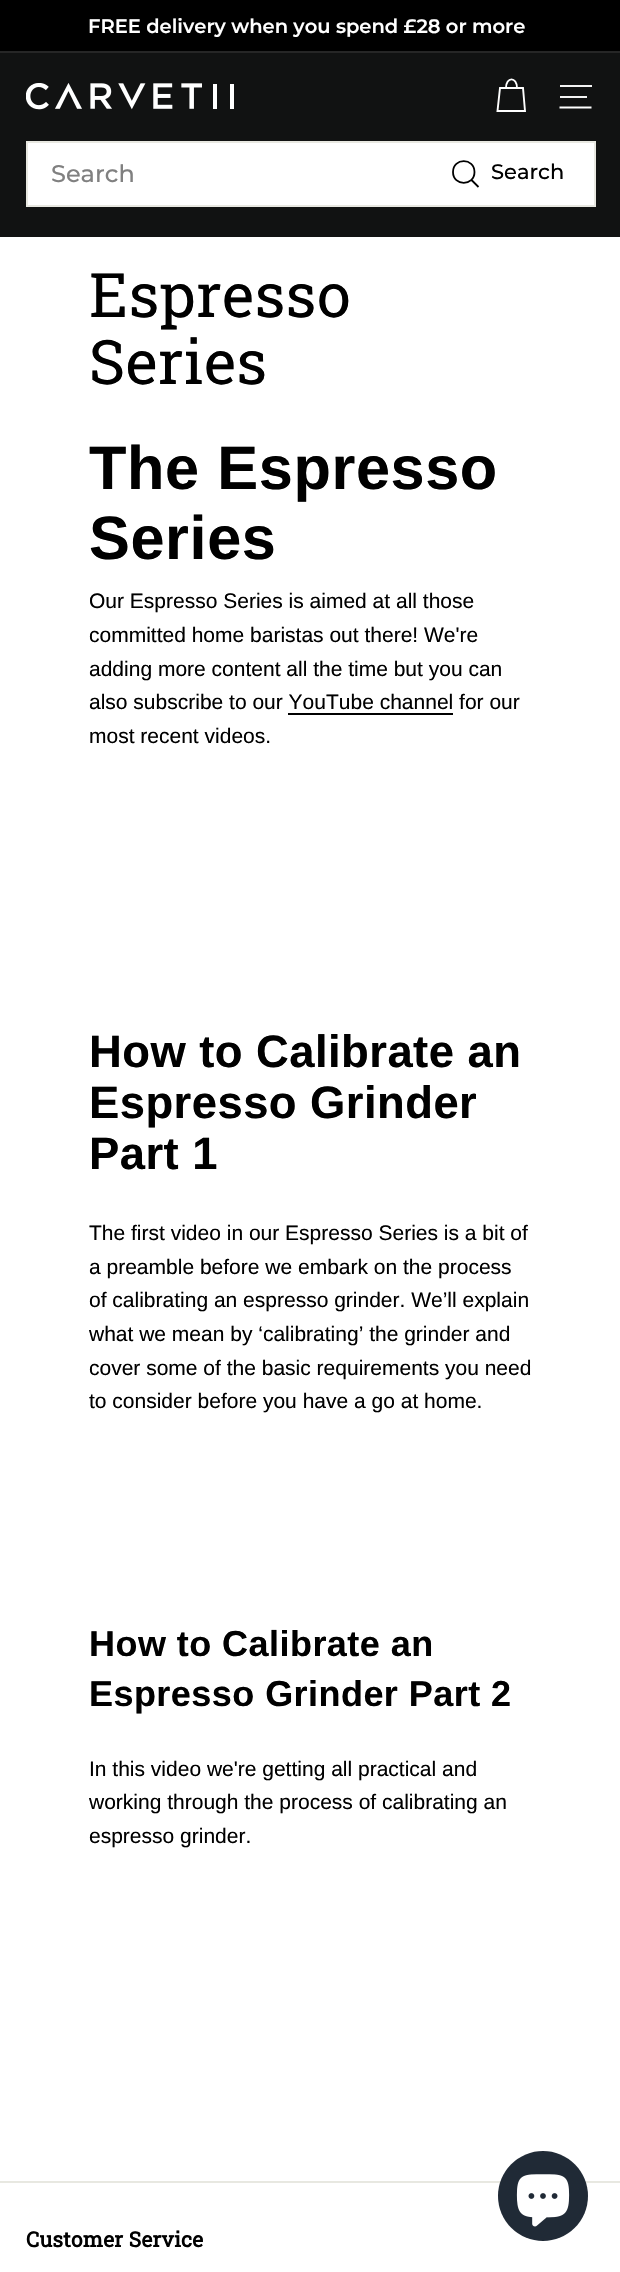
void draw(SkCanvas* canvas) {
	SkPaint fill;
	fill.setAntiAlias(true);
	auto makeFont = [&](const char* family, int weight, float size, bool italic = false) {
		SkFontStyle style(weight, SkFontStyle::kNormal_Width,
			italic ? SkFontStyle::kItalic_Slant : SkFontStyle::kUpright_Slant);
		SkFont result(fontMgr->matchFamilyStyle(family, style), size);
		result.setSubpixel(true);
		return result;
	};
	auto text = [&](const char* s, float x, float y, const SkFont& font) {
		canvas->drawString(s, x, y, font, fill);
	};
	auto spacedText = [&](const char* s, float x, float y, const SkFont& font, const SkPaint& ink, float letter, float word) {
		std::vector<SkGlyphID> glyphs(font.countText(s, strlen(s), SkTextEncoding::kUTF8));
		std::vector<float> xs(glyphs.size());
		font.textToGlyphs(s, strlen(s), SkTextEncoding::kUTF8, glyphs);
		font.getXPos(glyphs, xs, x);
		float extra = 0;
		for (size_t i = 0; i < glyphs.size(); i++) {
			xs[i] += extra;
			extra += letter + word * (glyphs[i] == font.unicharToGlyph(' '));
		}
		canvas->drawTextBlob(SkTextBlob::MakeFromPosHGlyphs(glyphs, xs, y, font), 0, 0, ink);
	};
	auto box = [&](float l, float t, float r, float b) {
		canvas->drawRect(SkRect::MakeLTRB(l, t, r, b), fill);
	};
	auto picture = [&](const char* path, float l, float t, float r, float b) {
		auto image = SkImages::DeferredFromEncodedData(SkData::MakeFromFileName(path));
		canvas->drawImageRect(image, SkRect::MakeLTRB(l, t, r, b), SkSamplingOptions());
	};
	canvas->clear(0xFFFFFFFF);
	fill.setColor(0xFF000000);
	box(0, 0, 620, 51);
	fill.setColor(0xFF262626);
	box(0, 51, 620, 53);
	fill.setColor(0xFF111212);
	box(0, 53, 620, 237);
	picture("image0.png", 26, 83, 234, 110);
	fill.setStyle(SkPaint::kStroke_Style);
	fill.setStrokeWidth(1.9f);
	fill.setColor(0xFFFFFFFF);
	canvas->drawPath(SkPathBuilder().moveTo(506, 88).cubicTo(506, 76.5f, 517, 76.5f, 517, 88).moveTo(500, 88).lineTo(523, 88).lineTo(525, 111).lineTo(497.5f, 111).close().detach(), fill);
	fill.setStyle(SkPaint::kFill_Style);
	fill.setColor(0xFFF3F3F3);
	box(560, 85, 592, 87);
	box(560, 96, 587, 98);
	fill.setStyle(SkPaint::kStroke_Style);
	fill.setColor(0xFFFFFFFF);
	canvas->drawPath(SkPathBuilder().moveTo(559.5f, 107.5f).lineTo(591.5f, 107.5f).detach(), fill);
	fill.setStyle(SkPaint::kFill_Style);
	canvas->drawRect(SkRect::MakeLTRB(27, 142, 595, 206), fill);
	fill.setStyle(SkPaint::kStroke_Style);
	fill.setStrokeWidth(2);
	fill.setColor(0xFFE8E8E1);
	canvas->drawRect(SkRect::MakeLTRB(27, 142, 595, 206), fill);
	fill.setStrokeWidth(1.8f);
	fill.setColor(0xFF000000);
	canvas->drawPath(SkPathBuilder().moveTo(474.5f, 172).cubicTo(474.5f, 186.5f, 453, 186.5f, 453, 172).cubicTo(453, 157.5f, 474.5f, 157.5f, 474.5f, 172).close().moveTo(478.5f, 187).lineTo(471.5f, 180).detach(), fill);
	fill.setStyle(SkPaint::kFill_Style);
	box(288, 713, 453, 715);
	fill.setColor(0xFFE8E8E1);
	box(0, 2181, 620, 2183);
	fill.setColor(0xFF202A36);
	canvas->drawCircle(543, 2196, 45, fill);
	picture("image1.png", 516, 2174, 570, 2227);
	auto font1 = makeFont("Montserrat", 600, 19.5f);
	fill.setColor(0xFFFFFFFF);
	text("FREE delivery when you spend £28 or more", 88, 33, font1);
	auto font2 = makeFont("Montserrat", 500, 24);
	fill.setColor(0xFF808080);
	text("Search", 51, 182, font2);
	auto font3 = makeFont("Montserrat", 500, 21);
	fill.setColor(0xFF000000);
	text("Search", 491, 179, font3);
	auto font4 = makeFont("Roboto Slab", 400, 61.25f);
	spacedText("Espresso", 89, 317, font4, fill, 0.6f, 0);
	spacedText("Series", 89, 384, font4, fill, 0.6f, 0);
	auto font5 = makeFont("Liberation Sans", 700, 61.25f);
	spacedText("The Espresso", 89, 489, font5, fill, 0.6f, 0);
	spacedText("Series", 89, 559, font5, fill, 0.6f, 0);
	auto font6 = makeFont("Liberation Sans", 400, 21);
	text("Our Espresso Series is aimed at all those", 89, 608, font6);
	text("committed home baristas out there! We're", 89, 642, font6);
	text("adding more content all the time but you can", 89, 676, font6);
	text("also subscribe to our YouTube channel for our", 89, 709, font6);
	text("most recent videos.", 89, 743, font6);
	auto font7 = makeFont("Liberation Sans", 700, 45.4f);
	spacedText("How to Calibrate an", 89, 1067, font7, fill, 0.45f, 0);
	spacedText("Espresso Grinder", 89, 1118, font7, fill, 0.45f, 0);
	spacedText("Part 1", 89, 1169, font7, fill, 0.45f, 0);
	text("The first video in our Espresso Series is a bit of", 89, 1240, font6);
	text("a preamble before we embark on the process", 89, 1274, font6);
	text("of calibrating an espresso grinder. We’ll explain", 89, 1307, font6);
	text("what we mean by ‘calibrating’ the grinder and", 89, 1341, font6);
	text("cover some of the basic requirements you need", 89, 1375, font6);
	text("to consider before you have a go at home.", 89, 1408, font6);
	auto font8 = makeFont("Liberation Sans", 700, 36);
	spacedText("How to Calibrate an", 89, 1656, font8, fill, 0.45f, 0);
	spacedText("Espresso Grinder Part 2", 89, 1706, font8, fill, 0.45f, 0);
	text("In this video we're getting all practical and", 89, 1776, font6);
	text("working through the process of calibrating an", 89, 1809, font6);
	text("espresso grinder.", 89, 1843, font6);
	auto font9 = makeFont("Roboto Slab", 700, 21);
	spacedText("Customer Service", 26, 2247, font9, fill, 0.25f, 0);
}
